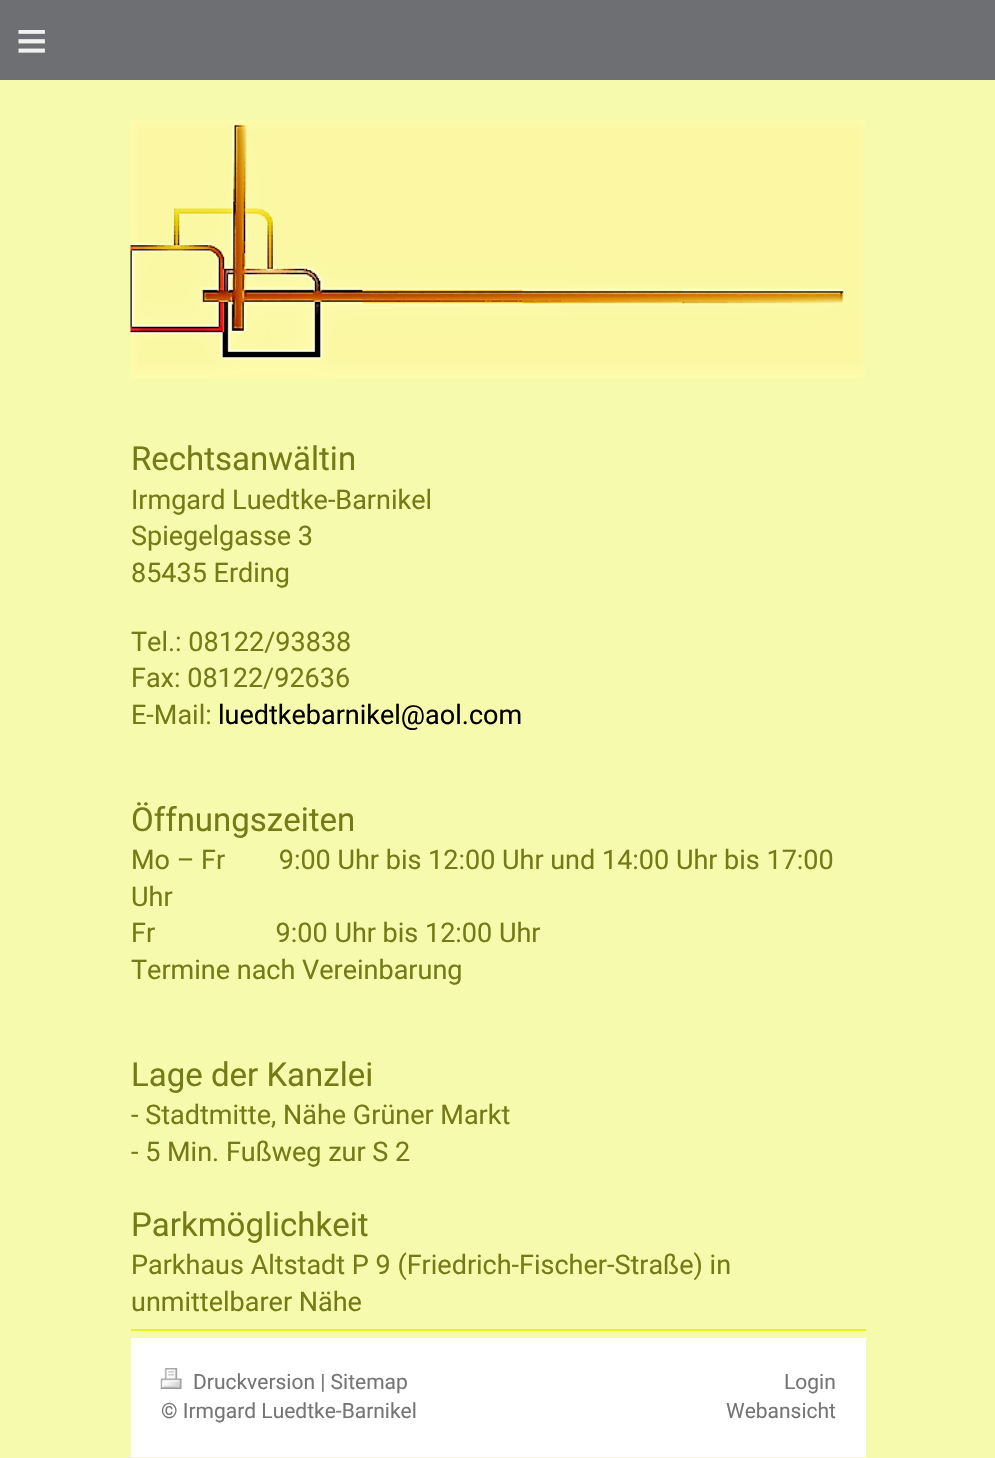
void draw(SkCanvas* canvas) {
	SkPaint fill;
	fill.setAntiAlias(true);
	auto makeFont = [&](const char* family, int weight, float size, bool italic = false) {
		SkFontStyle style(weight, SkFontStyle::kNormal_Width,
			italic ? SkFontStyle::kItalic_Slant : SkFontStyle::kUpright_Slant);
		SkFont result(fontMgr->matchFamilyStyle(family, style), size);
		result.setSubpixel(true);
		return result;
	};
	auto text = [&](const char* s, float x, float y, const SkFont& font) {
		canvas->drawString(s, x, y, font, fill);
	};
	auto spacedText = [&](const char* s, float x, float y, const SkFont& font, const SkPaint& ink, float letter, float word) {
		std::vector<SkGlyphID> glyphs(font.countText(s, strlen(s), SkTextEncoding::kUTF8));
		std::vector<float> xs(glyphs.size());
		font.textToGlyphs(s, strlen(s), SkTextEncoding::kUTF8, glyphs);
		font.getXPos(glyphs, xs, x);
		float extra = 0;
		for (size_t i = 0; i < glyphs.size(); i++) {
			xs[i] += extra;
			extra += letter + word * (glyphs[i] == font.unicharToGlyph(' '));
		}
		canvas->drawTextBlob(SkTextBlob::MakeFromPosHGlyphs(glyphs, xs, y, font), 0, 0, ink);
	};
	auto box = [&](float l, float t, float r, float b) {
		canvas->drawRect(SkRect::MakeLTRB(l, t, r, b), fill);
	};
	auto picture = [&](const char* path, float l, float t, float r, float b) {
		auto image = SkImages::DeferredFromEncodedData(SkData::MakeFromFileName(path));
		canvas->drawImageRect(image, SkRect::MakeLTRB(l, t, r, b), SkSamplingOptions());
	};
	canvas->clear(0xFFF5FAAC);
	fill.setColor(0xFF6E6F73);
	box(0, 0, 995, 80);
	picture("image0.png", 130, 120, 865, 379);
	fill.setColor(0xFFE8F228);
	box(131, 1329, 866, 1331);
	fill.setColor(0xFFFFFFFF);
	box(131, 1338, 866, 1457);
	picture("image1.png", 160, 1368, 182, 1389);
	auto font1 = makeFont("Liberation Sans", 400, 54);
	fill.setColor(0xFFF1F1F1);
	spacedText("≡", 16, 59, font1, fill, 16, 0);
	auto font2 = makeFont("Roboto", 400, 33);
	fill.setColor(0xFF757A17);
	text("Rechtsanwältin", 131, 470, font2);
	auto font3 = makeFont("Roboto", 400, 27);
	text("Irmgard Luedtke-Barnikel", 131, 509, font3);
	text("Spiegelgasse 3", 131, 545, font3);
	text("85435 Erding", 131, 582, font3);
	text("Tel.: 08122/93838", 131, 651, font3);
	text("Fax: 08122/92636", 131, 687, font3);
	text("E-Mail:", 131, 724, font3);
	fill.setColor(0xFF000000);
	text("luedtkebarnikel@aol.com", 218, 724, font3);
	fill.setColor(0xFF757A17);
	text("Öffnungszeiten", 131, 831, font2);
	text("Mo – Fr        9:00 Uhr bis 12:00 Uhr und 14:00 Uhr bis 17:00", 131, 869, font3);
	text("Uhr", 131, 906, font3);
	text("Fr                  9:00 Uhr bis 12:00 Uhr", 131, 942, font3);
	text("Termine nach Vereinbarung", 131, 979, font3);
	text("Lage der Kanzlei", 131, 1086, font2);
	text("- Stadtmitte, Nähe Grüner Markt", 131, 1124, font3);
	text("- 5 Min. Fußweg zur S 2", 131, 1161, font3);
	text("Parkmöglichkeit", 131, 1236, font2);
	text("Parkhaus Altstadt P 9 (Friedrich-Fischer-Straße) in", 131, 1274, font3);
	text("unmittelbarer Nähe", 131, 1311, font3);
	auto font4 = makeFont("Roboto", 400, 21);
	fill.setColor(0xFF757575);
	text("Druckversion | Sitemap", 193, 1389, font4);
	text("© Irmgard Luedtke-Barnikel", 161, 1418, font4);
	text("Login", 784, 1389, font4);
	text("Webansicht", 726, 1418, font4);
}
